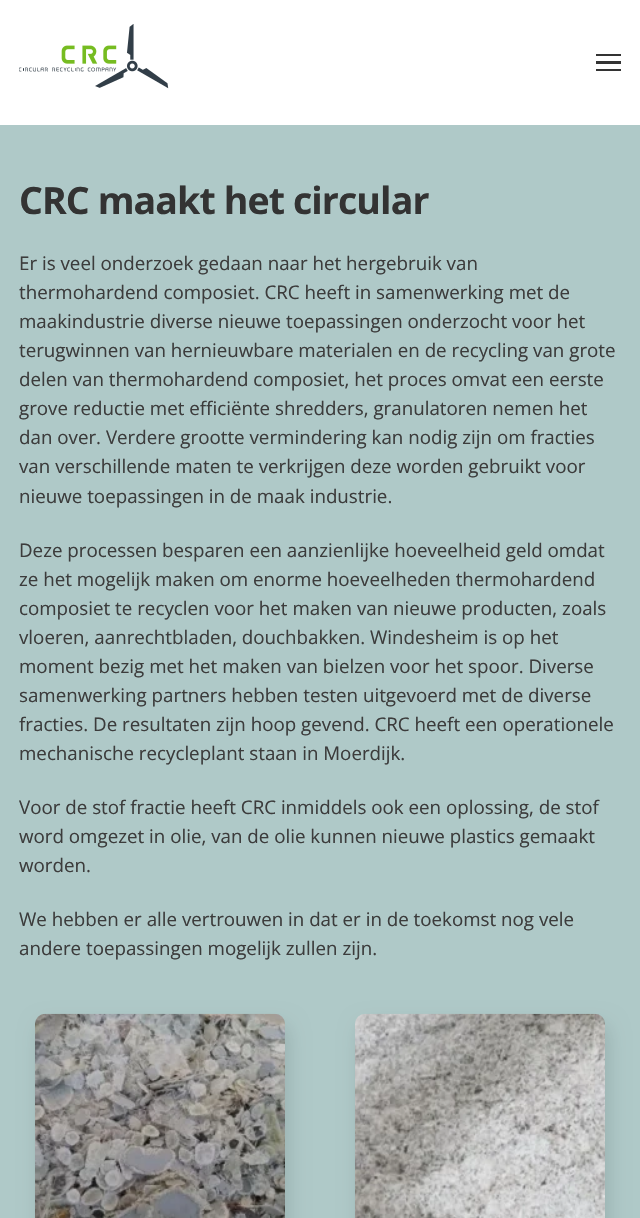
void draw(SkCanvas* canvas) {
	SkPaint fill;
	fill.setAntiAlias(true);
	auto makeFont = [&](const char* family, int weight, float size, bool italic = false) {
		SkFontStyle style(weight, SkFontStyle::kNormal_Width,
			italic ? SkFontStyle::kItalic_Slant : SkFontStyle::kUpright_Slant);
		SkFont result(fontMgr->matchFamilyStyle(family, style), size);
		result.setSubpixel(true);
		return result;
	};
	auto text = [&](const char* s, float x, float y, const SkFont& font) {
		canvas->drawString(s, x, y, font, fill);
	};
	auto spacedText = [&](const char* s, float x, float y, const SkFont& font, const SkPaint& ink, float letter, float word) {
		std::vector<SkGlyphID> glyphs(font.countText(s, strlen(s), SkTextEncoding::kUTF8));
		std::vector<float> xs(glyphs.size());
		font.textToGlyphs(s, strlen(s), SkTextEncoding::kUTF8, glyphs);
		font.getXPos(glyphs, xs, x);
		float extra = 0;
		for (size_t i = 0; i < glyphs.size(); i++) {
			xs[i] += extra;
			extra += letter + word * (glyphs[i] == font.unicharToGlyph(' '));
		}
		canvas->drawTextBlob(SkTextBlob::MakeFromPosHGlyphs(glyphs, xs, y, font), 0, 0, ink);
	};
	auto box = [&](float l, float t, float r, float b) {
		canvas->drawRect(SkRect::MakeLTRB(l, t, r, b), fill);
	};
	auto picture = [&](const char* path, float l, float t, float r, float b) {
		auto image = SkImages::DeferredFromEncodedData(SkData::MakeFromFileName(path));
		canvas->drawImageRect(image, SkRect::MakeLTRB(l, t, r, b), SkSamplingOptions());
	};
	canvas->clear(0xFFFFFFFF);
	picture("image0.png", 19, 24, 169, 89);
	fill.setColor(0xFF333333);
	box(596, 54, 621, 56);
	box(596, 61, 621, 64);
	box(596, 69, 621, 71);
	fill.setColor(0xFFAFC9C8);
	box(0, 125, 640, 1218);
	fill.setColor(0x1F000000);
	fill.setMaskFilter(SkMaskFilter::MakeBlur(kNormal_SkBlurStyle, 10));
	canvas->drawRoundRect(SkRect::MakeLTRB(39, 1024, 289, 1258), 10, 10, fill);
	fill.setMaskFilter(nullptr);
	picture("image1.png", 35, 1013, 285, 1218);
	fill.setMaskFilter(SkMaskFilter::MakeBlur(kNormal_SkBlurStyle, 10));
	canvas->drawRoundRect(SkRect::MakeLTRB(359, 1024, 609, 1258), 10, 10, fill);
	fill.setMaskFilter(nullptr);
	picture("image2.png", 355, 1013, 605, 1218);
	auto font1 = makeFont("Open Sans", 700, 37.5f);
	fill.setColor(0xFF333333);
	spacedText("CRC maakt het circular", 19, 214, font1, fill, -0.9f, 0);
	auto font2 = makeFont("Open Sans", 400, 18.75f);
	fill.setColor(0xFF3C3C3C);
	text("Er is veel onderzoek gedaan naar het hergebruik van", 19, 270, font2);
	text("thermohardend composiet. CRC heeft in samenwerking met de", 19, 299, font2);
	text("maakindustrie diverse nieuwe toepassingen onderzocht voor het", 19, 328, font2);
	text("terugwinnen van hernieuwbare materialen en de recycling van grote", 19, 357, font2);
	text("delen van thermohardend composiet, het proces omvat een eerste", 19, 386, font2);
	text("grove reductie met efficiënte shredders, granulatoren nemen het", 19, 415, font2);
	text("dan over. Verdere grootte vermindering kan nodig zijn om fracties", 19, 444, font2);
	text("van verschillende maten te verkrijgen deze worden gebruikt voor", 19, 473, font2);
	text("nieuwe toepassingen in de maak industrie.", 19, 503, font2);
	text("Deze processen besparen een aanzienlijke hoeveelheid geld omdat", 19, 557, font2);
	text("ze het mogelijk maken om enorme hoeveelheden thermohardend", 19, 586, font2);
	text("composiet te recyclen voor het maken van nieuwe producten, zoals", 19, 615, font2);
	text("vloeren, aanrechtbladen, douchbakken. Windesheim is op het", 19, 644, font2);
	text("moment bezig met het maken van bielzen voor het spoor. Diverse", 19, 673, font2);
	text("samenwerking partners hebben testen uitgevoerd met de diverse", 19, 702, font2);
	text("fracties. De resultaten zijn hoop gevend. CRC heeft een operationele", 19, 731, font2);
	text("mechanische recycleplant staan in Moerdijk.", 19, 760, font2);
	text("Voor de stof fractie heeft CRC inmiddels ook een oplossing, de stof", 19, 814, font2);
	text("word omgezet in olie, van de olie kunnen nieuwe plastics gemaakt", 19, 843, font2);
	text("worden.", 19, 872, font2);
	text("We hebben er alle vertrouwen in dat er in de toekomst nog vele", 19, 926, font2);
	text("andere toepassingen mogelijk zullen zijn.", 19, 955, font2);
}
